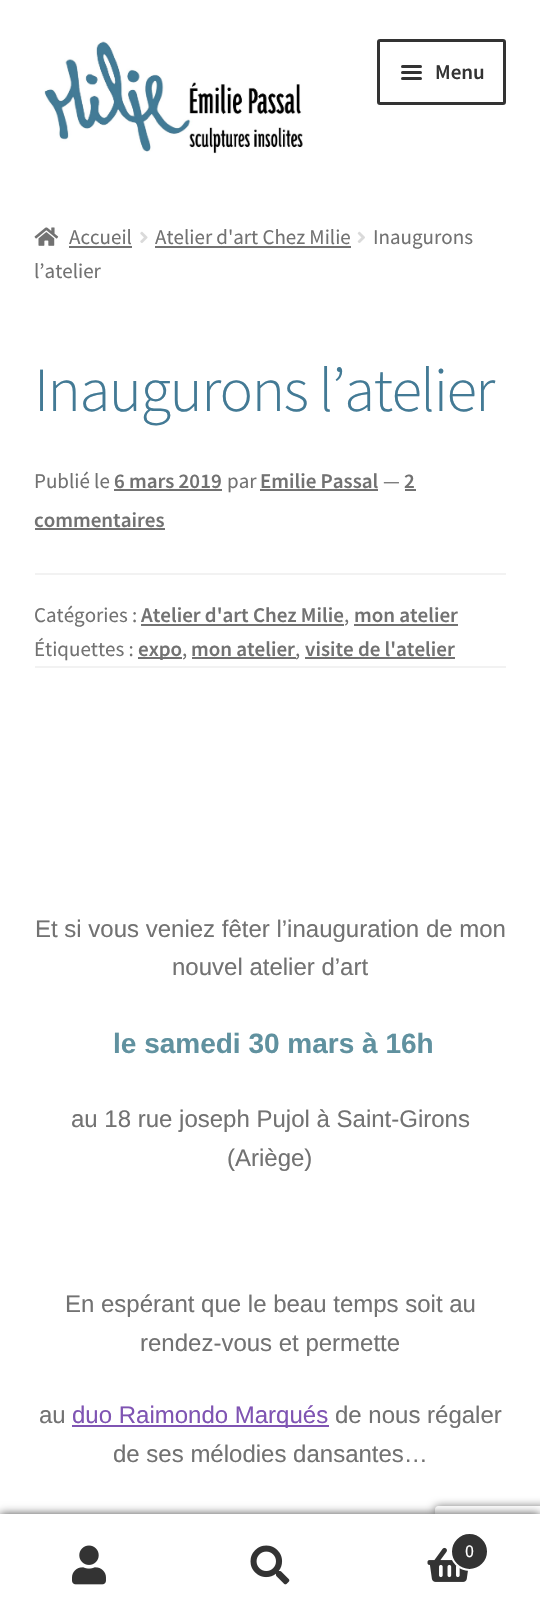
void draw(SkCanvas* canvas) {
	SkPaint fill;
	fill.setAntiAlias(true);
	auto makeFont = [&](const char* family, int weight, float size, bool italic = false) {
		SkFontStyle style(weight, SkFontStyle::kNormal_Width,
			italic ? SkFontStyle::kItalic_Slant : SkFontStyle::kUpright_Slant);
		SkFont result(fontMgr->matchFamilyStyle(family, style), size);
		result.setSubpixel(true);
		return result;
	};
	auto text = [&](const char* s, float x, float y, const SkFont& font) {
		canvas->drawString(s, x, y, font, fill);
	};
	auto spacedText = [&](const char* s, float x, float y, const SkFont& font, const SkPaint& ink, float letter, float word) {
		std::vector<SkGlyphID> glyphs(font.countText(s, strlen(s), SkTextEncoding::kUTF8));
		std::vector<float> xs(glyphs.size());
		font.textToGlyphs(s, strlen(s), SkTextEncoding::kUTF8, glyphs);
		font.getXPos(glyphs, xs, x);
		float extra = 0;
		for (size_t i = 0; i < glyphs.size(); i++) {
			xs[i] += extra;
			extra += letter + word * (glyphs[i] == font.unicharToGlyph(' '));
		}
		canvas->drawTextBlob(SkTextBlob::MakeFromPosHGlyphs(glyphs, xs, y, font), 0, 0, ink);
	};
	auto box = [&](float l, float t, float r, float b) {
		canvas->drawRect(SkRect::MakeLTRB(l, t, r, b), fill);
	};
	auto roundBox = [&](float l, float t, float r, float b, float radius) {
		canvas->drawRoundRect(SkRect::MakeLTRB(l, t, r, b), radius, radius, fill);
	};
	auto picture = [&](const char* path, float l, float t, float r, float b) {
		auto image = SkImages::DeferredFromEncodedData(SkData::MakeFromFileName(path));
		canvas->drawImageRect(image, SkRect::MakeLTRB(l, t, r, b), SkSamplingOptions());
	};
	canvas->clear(0xFFFFFFFF);
	picture("image0.png", 44, 41, 303, 154);
	fill.setStyle(SkPaint::kStroke_Style);
	fill.setStrokeWidth(3);
	fill.setColor(0xFF333333);
	canvas->drawRoundRect(SkRect::MakeLTRB(378.5f, 40.5f, 504.5f, 103.5f), 1.5f, 1.5f, fill);
	fill.setStyle(SkPaint::kFill_Style);
	roundBox(401, 65, 422, 68, 1.5f);
	roundBox(401, 71, 422, 74, 1.5f);
	roundBox(401, 77, 422, 80, 1.5f);
	picture("image1.png", 34, 227, 59, 246);
	fill.setColor(0xFF727272);
	box(69, 246, 132, 248);
	picture("image2.png", 140, 231, 148, 243);
	box(155, 246, 351, 248);
	picture("image3.png", 357, 231, 365, 243);
	fill.setColor(0xFFF2F2F2);
	box(35, 666, 506, 668);
	fill.setColor(0xFF727272);
	box(114, 489, 222, 491);
	box(260, 489, 378, 491);
	box(405, 489, 416, 491);
	box(35, 528, 165, 530);
	fill.setColor(0xFFF2F2F2);
	box(35, 573, 506, 575);
	fill.setColor(0xFF727272);
	box(141, 624, 344, 626);
	box(354, 624, 458, 626);
	box(138, 657, 182, 659);
	box(192, 657, 296, 659);
	box(305, 657, 455, 659);
	fill.setColor(0xFF7F54B3);
	box(72, 1425, 329, 1427);
	fill.setColor(0xB3000000);
	fill.setMaskFilter(SkMaskFilter::MakeBlur(kNormal_SkBlurStyle, 4.5f));
	canvas->drawRect(SkRect::MakeLTRB(0, 1514, 540, 1617), fill);
	fill.setMaskFilter(nullptr);
	canvas->save();
	canvas->clipPath(SkPathBuilder(SkPathFillType::kEvenOdd).moveTo(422, 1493).lineTo(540, 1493).lineTo(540, 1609).lineTo(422, 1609).close().moveTo(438, 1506).lineTo(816, 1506).cubicTo(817.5f, 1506, 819, 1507.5f, 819, 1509).lineTo(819, 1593).cubicTo(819, 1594.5f, 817.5f, 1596, 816, 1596).lineTo(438, 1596).cubicTo(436.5f, 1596, 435, 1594.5f, 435, 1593).lineTo(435, 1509).cubicTo(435, 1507.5f, 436.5f, 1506, 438, 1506).close().detach(), true);
	fill.setColor(0xFF808080);
	fill.setMaskFilter(SkMaskFilter::MakeBlur(kNormal_SkBlurStyle, 4));
	canvas->drawRoundRect(SkRect::MakeLTRB(435, 1506, 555, 1596), 3, 3, fill);
	fill.setMaskFilter(nullptr);
	canvas->restore();
	fill.setColor(0xFFFFFFFF);
	box(0, 1514, 540, 1515);
	box(0, 1515, 540, 1617);
	picture("image4.png", 72, 1545, 106, 1585);
	picture("image5.png", 250, 1545, 290, 1585);
	picture("image6.png", 427, 1547, 468, 1582);
	fill.setColor(0xFF333333);
	canvas->drawCircle(469.5f, 1551.5f, 18.5f, fill);
	fill.setStyle(SkPaint::kStroke_Style);
	fill.setStrokeWidth(2);
	fill.setColor(0xFFFFFFFF);
	canvas->drawCircle(469.5f, 1551.5f, 18.5f, fill);
	auto font1 = makeFont("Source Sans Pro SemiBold", 600, 21);
	fill.setStyle(SkPaint::kFill_Style);
	fill.setColor(0xFF333333);
	text("Menu", 435, 79, font1);
	auto font2 = makeFont("Source Sans Pro", 400, 21);
	fill.setColor(0xFF727272);
	text("Accueil", 69, 244, font2);
	text("Atelier d'art Chez Milie", 155, 244, font2);
	text("Inaugurons", 373, 244, font2);
	text("l’atelier", 34, 278, font2);
	auto font3 = makeFont("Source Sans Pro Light", 300, 62.75f);
	fill.setColor(0xFF437A95);
	spacedText("Inaugurons l’atelier", 34, 411, font3, fill, -1.5f, 0);
	fill.setColor(0xFF727272);
	text("Publié le", 34, 488, font2);
	text("6 mars 2019", 114, 488, font1);
	text("par", 227, 488, font2);
	text("Emilie Passal", 260, 488, font1);
	text("—", 383, 488, font2);
	text("2", 404, 488, font1);
	text("commentaires", 34, 527, font1);
	text("Catégories :", 34, 622, font2);
	text("Atelier d'art Chez Milie", 141, 622, font1);
	text(",", 344, 622, font2);
	text("mon atelier", 354, 622, font1);
	text("Étiquettes :", 34, 656, font2);
	text("expo", 138, 656, font1);
	text(",", 182, 656, font2);
	text("mon atelier", 191, 656, font1);
	text(",", 295, 656, font2);
	text("visite de l'atelier", 305, 656, font1);
	auto font4 = makeFont("Liberation Sans", 400, 24);
	text("Et si vous veniez fêter l’inauguration de mon", 35, 937, font4);
	text("nouvel atelier d’art", 172, 975, font4);
	auto font5 = makeFont("Liberation Sans", 700, 28);
	fill.setColor(0xFF60919F);
	text("le samedi 30 mars à 16h", 113, 1053, font5);
	fill.setColor(0xFF727272);
	text("au 18 rue joseph Pujol à Saint-Girons", 71, 1127, font4);
	text("(Ariège)", 227, 1166, font4);
	text("En espérant que le beau temps soit au", 65, 1312, font4);
	text("rendez-vous et permette", 140, 1351, font4);
	text("au", 39, 1423, font4);
	fill.setColor(0xFF7F54B3);
	text("duo Raimondo Marqués", 72, 1423, font4);
	fill.setColor(0xFF727272);
	text("de nous régaler", 335, 1423, font4);
	text("de ses mélodies dansantes…", 113, 1462, font4);
	auto font6 = makeFont("Source Sans Pro", 400, 18);
	fill.setColor(0xFFFFFFFF);
	text("0", 465, 1557, font6);
}
